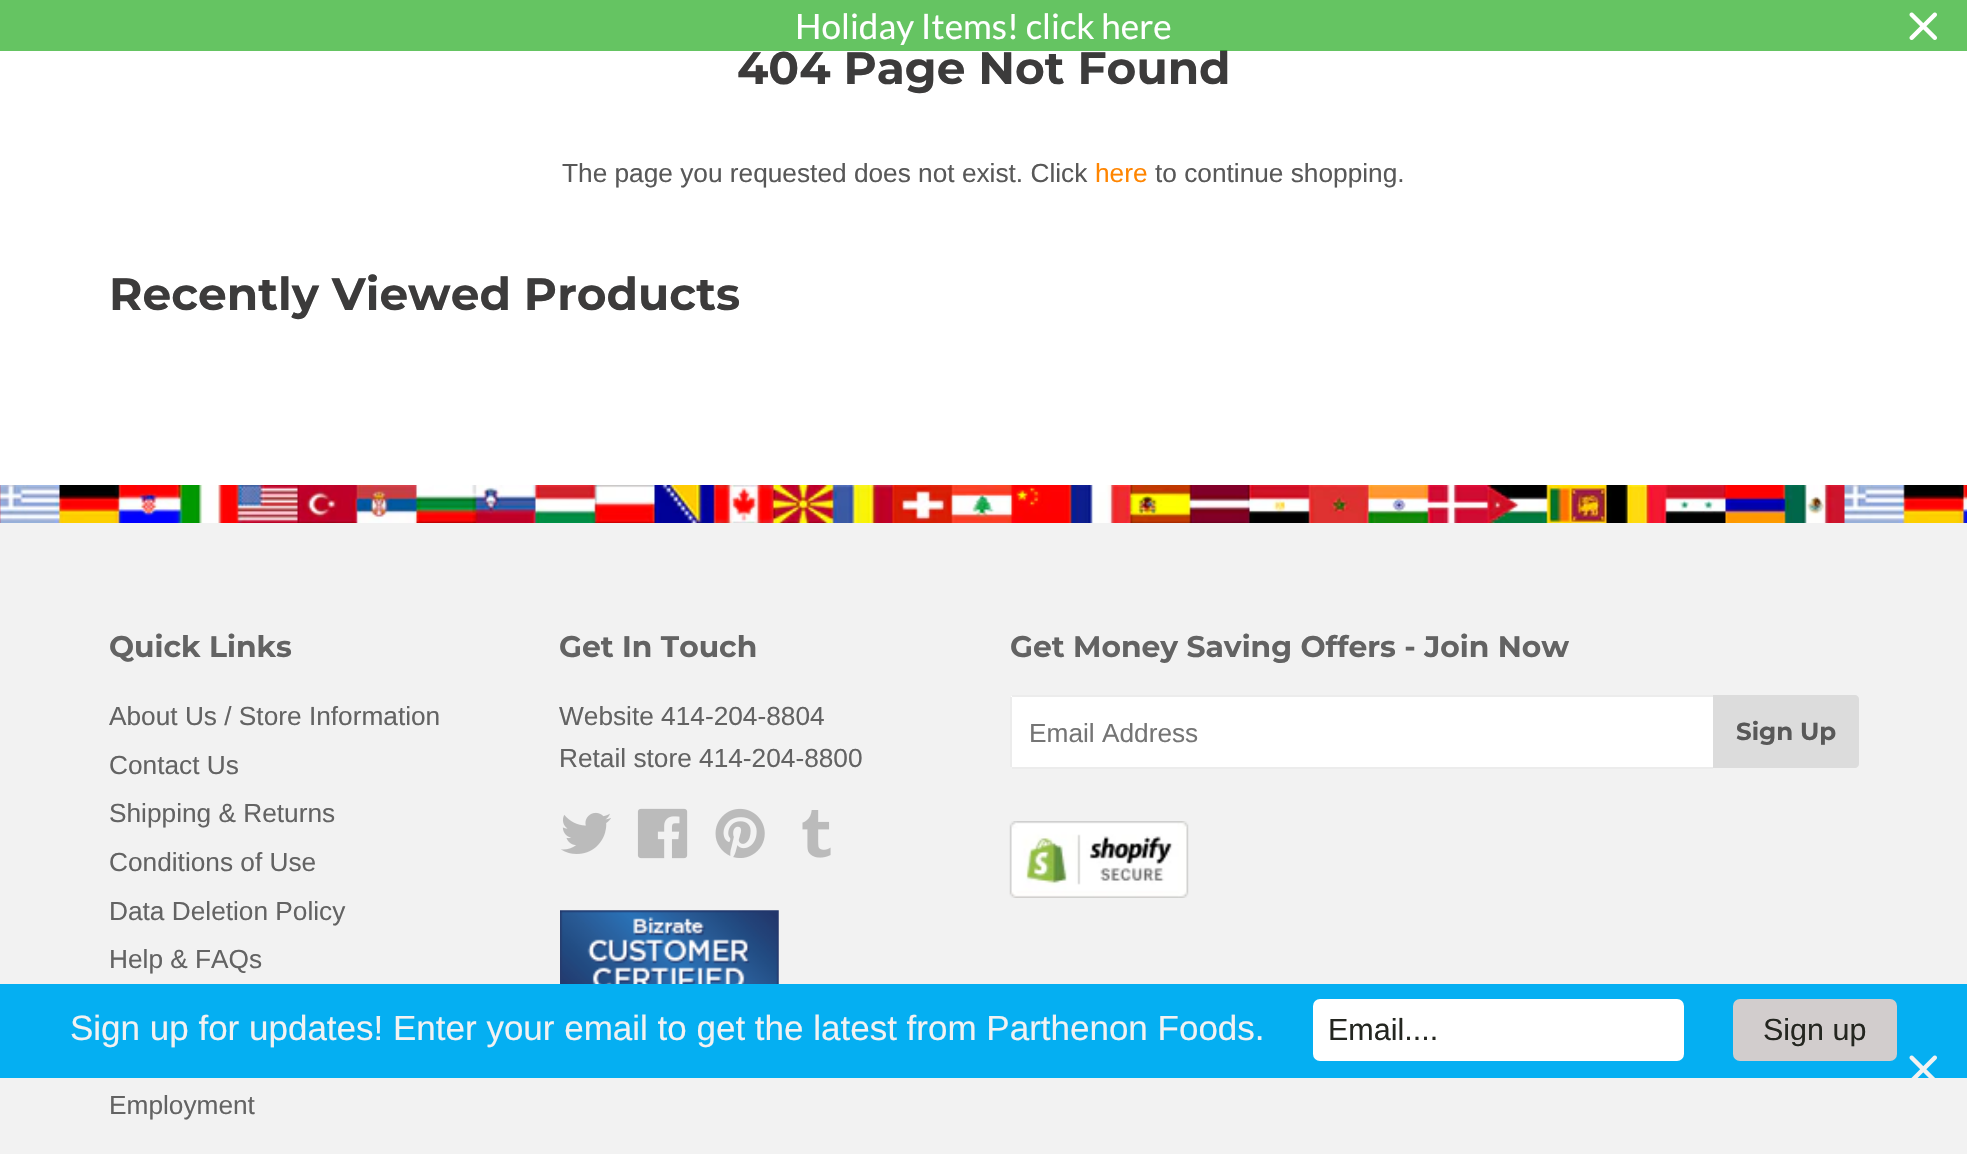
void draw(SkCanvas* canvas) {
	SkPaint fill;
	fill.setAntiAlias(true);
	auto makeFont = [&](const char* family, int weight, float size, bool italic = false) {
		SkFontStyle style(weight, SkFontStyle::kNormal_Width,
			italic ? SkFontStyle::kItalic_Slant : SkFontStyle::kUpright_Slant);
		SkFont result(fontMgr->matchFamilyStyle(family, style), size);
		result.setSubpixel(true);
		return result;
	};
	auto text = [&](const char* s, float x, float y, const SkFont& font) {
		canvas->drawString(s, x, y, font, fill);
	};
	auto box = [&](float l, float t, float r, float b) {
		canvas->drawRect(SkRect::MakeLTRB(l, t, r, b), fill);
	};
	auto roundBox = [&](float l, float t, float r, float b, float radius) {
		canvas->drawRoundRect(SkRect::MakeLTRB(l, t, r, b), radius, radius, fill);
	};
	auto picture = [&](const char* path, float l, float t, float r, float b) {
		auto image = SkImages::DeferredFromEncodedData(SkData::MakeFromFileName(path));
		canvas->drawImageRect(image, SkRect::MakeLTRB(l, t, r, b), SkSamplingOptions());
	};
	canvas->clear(0xFFFFFFFF);
	picture("image1.png", 0, 485, 1967, 523);
	fill.setColor(0xFFF2F2F2);
	box(0, 523, 1967, 1154);
	picture("image2.png", 561, 812, 611, 854);
	picture("image3.png", 637, 808, 688, 859);
	picture("image4.png", 715, 808, 765, 858);
	picture("image5.png", 802, 810, 831, 858);
	picture("image6.png", 560, 910, 779, 984);
	fill.setColor(0xFFFFFFFF);
	canvas->drawPath(SkPathBuilder().moveTo(1014, 695).lineTo(1713, 695).lineTo(1713, 768).lineTo(1014, 768).cubicTo(1012, 768, 1010, 766, 1010, 764).lineTo(1010, 699).cubicTo(1010, 697, 1012, 695, 1014, 695).close().detach(), fill);
	fill.setColor(0xFFECECEC);
	box(1012, 695, 1713, 697);
	box(1012, 767, 1713, 769);
	box(1010, 697, 1012, 767);
	fill.setColor(0xFFDCDCDC);
	canvas->drawPath(SkPathBuilder().moveTo(1713, 695).lineTo(1855, 695).cubicTo(1857, 695, 1859, 697, 1859, 699).lineTo(1859, 764).cubicTo(1859, 766, 1857, 768, 1855, 768).lineTo(1713, 768).close().detach(), fill);
	picture("image7.png", 1009, 821, 1189, 898);
	fill.setColor(0xFF05AFF2);
	box(0, 984, 1967, 1078);
	fill.setColor(0xFFFFFFFF);
	roundBox(1313, 999, 1684, 1061, 7);
	fill.setColor(0xFFD2CDCD);
	roundBox(1733, 999, 1897, 1061, 7);
	picture("image8.png", 1909, 1055, 1937, 1078);
	auto font1 = makeFont("Montserrat", 100, 45.5f);
	fill.setColor(0xFF3C3B3B);
	text("404 Page Not Found", 737, 84, font1);
	fill.setColor(0xB323AB20);
	box(0, 0, 1967, 51);
	picture("image0.png", 1909, 12, 1937, 40);
	auto font2 = makeFont("Lato", 400, 35);
	fill.setColor(0xFFFFFFFF);
	text("Holiday Items! click here", 795, 39, font2);
	auto font3 = makeFont("Liberation Sans", 400, 26.25f);
	fill.setColor(0xFF585858);
	text("The page you requested does not exist. Click", 562, 182, font3);
	fill.setColor(0xFFFF8500);
	text("here", 1095, 182, font3);
	fill.setColor(0xFF585858);
	text("to continue shopping.", 1155, 182, font3);
	fill.setColor(0xFF3C3B3B);
	text("Recently Viewed Products", 109, 310, font1);
	auto font4 = makeFont("Montserrat", 100, 29.75f);
	fill.setColor(0xFF636363);
	text("Quick Links", 109, 657, font4);
	text("About Us / Store Information", 109, 725, font3);
	text("Contact Us", 109, 774, font3);
	text("Shipping & Returns", 109, 822, font3);
	text("Conditions of Use", 109, 871, font3);
	text("Data Deletion Policy", 109, 920, font3);
	text("Help & FAQs", 109, 968, font3);
	text("Employment", 109, 1114, font3);
	text("Get In Touch", 559, 657, font4);
	text("Website 414-204-8804", 559, 725, font3);
	text("Retail store 414-204-8800", 559, 767, font3);
	text("Get Money Saving Offers - Join Now", 1010, 657, font4);
	fill.setColor(0xFF757575);
	text("Email Address", 1029, 742, font3);
	auto font5 = makeFont("Montserrat", 100, 24.5f);
	fill.setColor(0xFF585858);
	text("Sign Up", 1736, 740, font5);
	auto font6 = makeFont("Liberation Sans", 400, 35);
	fill.setColor(0xFFF2F2F2);
	text("Sign up for updates! Enter your email to get the latest from Parthenon Foods.", 70, 1040, font6);
	auto font7 = makeFont("Liberation Sans", 400, 30.5f);
	fill.setColor(0xFF242620);
	text("Email....", 1328, 1040, font7);
	text("Sign up", 1763, 1040, font7);
}
